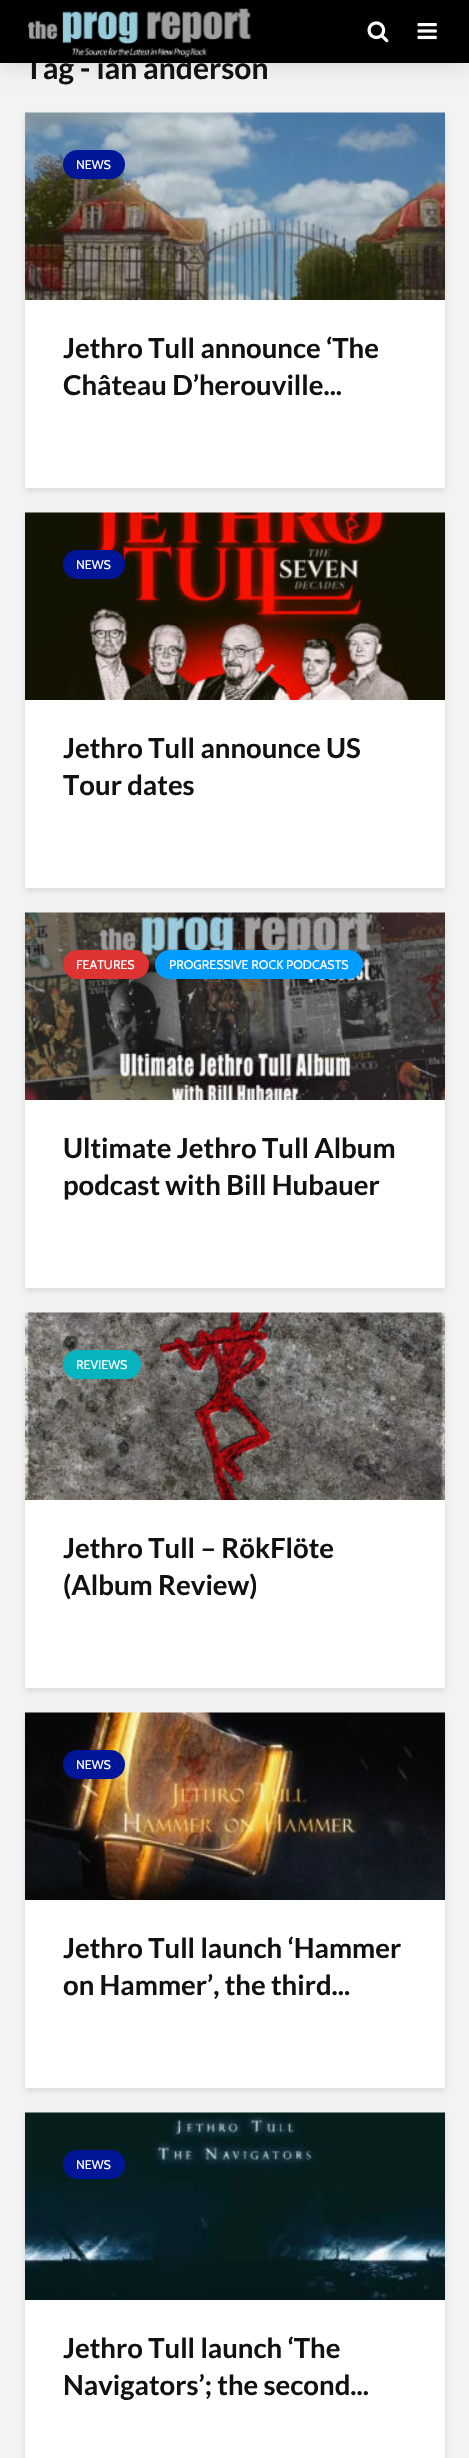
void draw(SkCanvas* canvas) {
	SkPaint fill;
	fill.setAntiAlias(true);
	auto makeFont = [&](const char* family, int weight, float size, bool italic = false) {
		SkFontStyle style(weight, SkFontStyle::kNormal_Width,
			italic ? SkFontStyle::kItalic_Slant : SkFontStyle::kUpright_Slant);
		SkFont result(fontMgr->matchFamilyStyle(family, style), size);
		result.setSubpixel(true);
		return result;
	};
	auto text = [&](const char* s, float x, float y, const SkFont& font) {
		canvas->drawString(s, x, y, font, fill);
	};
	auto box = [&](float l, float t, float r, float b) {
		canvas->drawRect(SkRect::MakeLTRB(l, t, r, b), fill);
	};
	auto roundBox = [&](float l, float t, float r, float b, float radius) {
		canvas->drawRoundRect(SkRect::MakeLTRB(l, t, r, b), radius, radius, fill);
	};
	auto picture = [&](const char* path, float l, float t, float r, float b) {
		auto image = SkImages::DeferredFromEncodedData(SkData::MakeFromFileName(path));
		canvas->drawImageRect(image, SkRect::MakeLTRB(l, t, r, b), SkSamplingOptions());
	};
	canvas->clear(0xFFF3F3F3);
	fill.setColor(0x26000000);
	fill.setMaskFilter(SkMaskFilter::MakeBlur(kNormal_SkBlurStyle, 12.5f));
	canvas->drawRect(SkRect::MakeLTRB(0, 0, 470, 63), fill);
	fill.setMaskFilter(nullptr);
	fill.setColor(0x1A000101);
	fill.setMaskFilter(SkMaskFilter::MakeBlur(kNormal_SkBlurStyle, 3));
	canvas->drawRect(SkRect::MakeLTRB(25, 116, 445, 491), fill);
	fill.setMaskFilter(nullptr);
	fill.setColor(0xFFFFFFFF);
	box(25, 300, 445, 488);
	picture("image3.png", 25, 112, 445, 300);
	fill.setColor(0xFF001699);
	roundBox(63, 150, 125, 179, 14.5f);
	fill.setColor(0x1A000101);
	fill.setMaskFilter(SkMaskFilter::MakeBlur(kNormal_SkBlurStyle, 3));
	canvas->drawRect(SkRect::MakeLTRB(25, 516, 445, 891), fill);
	fill.setMaskFilter(nullptr);
	fill.setColor(0xFFFFFFFF);
	box(25, 700, 445, 888);
	picture("image4.png", 25, 512, 445, 700);
	fill.setColor(0xFF001699);
	roundBox(63, 550, 125, 579, 14.5f);
	fill.setColor(0x1A000101);
	fill.setMaskFilter(SkMaskFilter::MakeBlur(kNormal_SkBlurStyle, 3));
	canvas->drawRect(SkRect::MakeLTRB(25, 916, 445, 1291), fill);
	fill.setMaskFilter(nullptr);
	fill.setColor(0xFFFFFFFF);
	box(25, 1100, 445, 1288);
	picture("image5.png", 25, 912, 445, 1100);
	fill.setColor(0xFFDD3333);
	roundBox(63, 950, 149, 979, 14.5f);
	fill.setColor(0xFF009CFF);
	roundBox(155, 950, 363, 979, 14.5f);
	fill.setColor(0x1A000101);
	fill.setMaskFilter(SkMaskFilter::MakeBlur(kNormal_SkBlurStyle, 3));
	canvas->drawRect(SkRect::MakeLTRB(25, 1316, 445, 1691), fill);
	fill.setMaskFilter(nullptr);
	fill.setColor(0xFFFFFFFF);
	box(25, 1500, 445, 1688);
	picture("image6.png", 25, 1312, 445, 1500);
	fill.setColor(0xFF07B3BF);
	roundBox(63, 1350, 141, 1379, 14.5f);
	fill.setColor(0x1A000101);
	fill.setMaskFilter(SkMaskFilter::MakeBlur(kNormal_SkBlurStyle, 3));
	canvas->drawRect(SkRect::MakeLTRB(25, 1716, 445, 2091), fill);
	fill.setMaskFilter(nullptr);
	fill.setColor(0xFFFFFFFF);
	box(25, 1900, 445, 2088);
	picture("image7.png", 25, 1712, 445, 1900);
	fill.setColor(0xFF001699);
	roundBox(63, 1750, 125, 1779, 14.5f);
	fill.setColor(0x1A000101);
	fill.setMaskFilter(SkMaskFilter::MakeBlur(kNormal_SkBlurStyle, 3));
	canvas->drawRect(SkRect::MakeLTRB(25, 2116, 445, 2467), fill);
	fill.setMaskFilter(nullptr);
	fill.setColor(0xFFFFFFFF);
	box(25, 2300, 445, 2458);
	picture("image8.png", 25, 2112, 445, 2300);
	fill.setColor(0xFF001699);
	roundBox(63, 2150, 125, 2179, 14.5f);
	auto font1 = makeFont("Lato", 700, 30);
	fill.setColor(0xFF111111);
	text("Tag - ian anderson", 25, 79, font1);
	fill.setColor(0xFF000000);
	box(0, 0, 469, 63);
	picture("image2.png", 417, 23, 437, 40);
	picture("image1.png", 367, 21, 389, 43);
	picture("image0.png", 27, 8, 252, 58);
	auto font2 = makeFont("Cabin", 400, 12.5f);
	fill.setColor(0xFFFFFFFF);
	text("NEWS", 76, 169, font2);
	auto font3 = makeFont("Lato", 700, 27.5f);
	fill.setColor(0xFF111111);
	text("Jethro Tull announce ‘The", 63, 358, font3);
	text("Château D’herouville...", 63, 395, font3);
	fill.setColor(0xFFFFFFFF);
	text("NEWS", 76, 569, font2);
	fill.setColor(0xFF111111);
	text("Jethro Tull announce US", 63, 758, font3);
	canvas->save();
	canvas->clipRect(SkRect::MakeLTRB(63, 729, 408, 816));
	text("Tour dates", 63, 795, font3);
	canvas->restore();
	fill.setColor(0xFFFFFFFF);
	text("FEATURES", 76, 969, font2);
	text("PROGRESSIVE ROCK PODCASTS", 169, 969, font2);
	fill.setColor(0xFF111111);
	text("Ultimate Jethro Tull Album", 63, 1158, font3);
	text("podcast with Bill Hubauer", 63, 1195, font3);
	fill.setColor(0xFFFFFFFF);
	text("REVIEWS", 76, 1369, font2);
	fill.setColor(0xFF111111);
	text("Jethro Tull – RökFlöte", 63, 1558, font3);
	text("(Album Review)", 63, 1595, font3);
	fill.setColor(0xFFFFFFFF);
	text("NEWS", 76, 1769, font2);
	fill.setColor(0xFF111111);
	text("Jethro Tull launch ‘Hammer", 63, 1958, font3);
	text("on Hammer’, the third...", 63, 1995, font3);
	fill.setColor(0xFFFFFFFF);
	text("NEWS", 76, 2169, font2);
	fill.setColor(0xFF111111);
	text("Jethro Tull launch ‘The", 63, 2358, font3);
	text("Navigators’; the second...", 63, 2395, font3);
}
